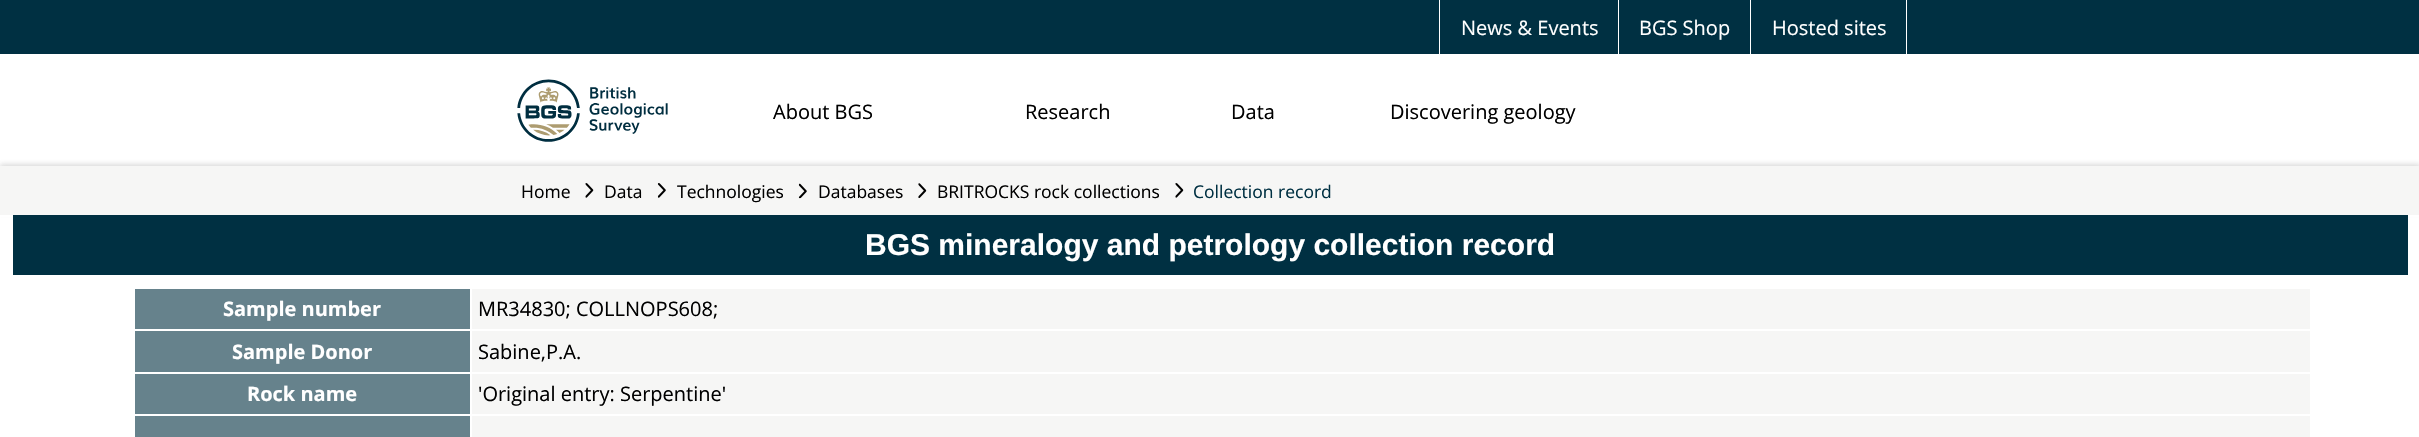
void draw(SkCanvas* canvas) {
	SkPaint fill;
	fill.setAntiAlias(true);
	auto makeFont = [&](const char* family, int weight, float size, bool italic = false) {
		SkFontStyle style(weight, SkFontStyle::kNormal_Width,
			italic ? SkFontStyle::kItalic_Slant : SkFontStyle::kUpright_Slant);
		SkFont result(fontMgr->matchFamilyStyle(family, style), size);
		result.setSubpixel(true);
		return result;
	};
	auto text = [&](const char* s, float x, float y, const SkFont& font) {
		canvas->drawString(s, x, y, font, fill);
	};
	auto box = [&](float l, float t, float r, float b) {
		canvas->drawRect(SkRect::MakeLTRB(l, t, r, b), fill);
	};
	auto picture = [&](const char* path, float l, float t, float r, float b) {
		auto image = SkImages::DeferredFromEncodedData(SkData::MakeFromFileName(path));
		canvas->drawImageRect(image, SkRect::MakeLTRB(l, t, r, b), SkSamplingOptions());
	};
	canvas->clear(0xFFFFFFFF);
	fill.setColor(0xFF003042);
	box(0, 0, 2419, 54);
	fill.setColor(0xFFFFFFFF);
	box(1618, 0, 1619, 54);
	box(1439, 0, 1440, 54);
	box(1750, 0, 1751, 54);
	box(1906, 0, 1907, 54);
	picture("image0.png", 517, 79, 668, 142);
	fill.setColor(0x80B7B7B7);
	fill.setMaskFilter(SkMaskFilter::MakeBlur(kNormal_SkBlurStyle, 2.5f));
	canvas->drawRect(SkRect::MakeLTRB(0, 164, 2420, 213), fill);
	fill.setMaskFilter(nullptr);
	fill.setColor(0xFFF6F6F5);
	box(0, 166, 2419, 215);
	picture("image1.png", 585, 183, 594, 198);
	picture("image2.png", 657, 183, 666, 198);
	picture("image3.png", 798, 183, 807, 199);
	picture("image4.png", 918, 183, 927, 198);
	picture("image5.png", 1175, 183, 1184, 198);
	fill.setColor(0xFFFFFFFF);
	box(0, 215, 2419, 217);
	fill.setColor(0xFF003042);
	box(13, 215, 2408, 275);
	fill.setColor(0xFF66828C);
	box(135, 289, 470, 329);
	fill.setColor(0xFFF6F6F5);
	box(472, 289, 2310, 329);
	fill.setColor(0xFF66828C);
	box(135, 331, 470, 372);
	fill.setColor(0xFFF6F6F5);
	box(472, 331, 2310, 372);
	fill.setColor(0xFF66828C);
	box(135, 374, 470, 414);
	fill.setColor(0xFFF6F6F5);
	box(472, 374, 2310, 414);
	fill.setColor(0xFF66828C);
	box(135, 416, 470, 437);
	fill.setColor(0xFFF6F6F5);
	box(472, 416, 2310, 437);
	auto font1 = makeFont("Open Sans", 400, 20);
	fill.setColor(0xFFFFFFFF);
	text("News & Events", 1461, 35, font1);
	text("BGS Shop", 1639, 35, font1);
	text("Hosted sites", 1772, 35, font1);
	fill.setColor(0xFF000000);
	text("About BGS", 773, 119, font1);
	text("Research", 1025, 119, font1);
	text("Data", 1231, 119, font1);
	text("Discovering geology", 1390, 119, font1);
	auto font2 = makeFont("Open Sans", 400, 17.5f);
	text("Home", 521, 198, font2);
	text("Data", 604, 198, font2);
	text("Technologies", 677, 198, font2);
	text("Databases", 818, 198, font2);
	text("BRITROCKS rock collections", 937, 198, font2);
	fill.setColor(0xFF003042);
	text("Collection record", 1193, 198, font2);
	auto font3 = makeFont("Liberation Sans", 700, 30);
	fill.setColor(0xFFFFFFFF);
	text("BGS mineralogy and petrology collection record", 865, 255, font3);
	auto font4 = makeFont("Open Sans", 700, 20);
	text("Sample number", 223, 316, font4);
	fill.setColor(0xFF000000);
	text("MR34830; COLLNOPS608;", 478, 316, font1);
	fill.setColor(0xFFFFFFFF);
	text("Sample Donor", 232, 359, font4);
	fill.setColor(0xFF000000);
	text("Sabine,P.A.", 478, 359, font1);
	fill.setColor(0xFFFFFFFF);
	text("Rock name", 247, 401, font4);
	fill.setColor(0xFF000000);
	text("'Original entry: Serpentine'", 478, 401, font1);
}
